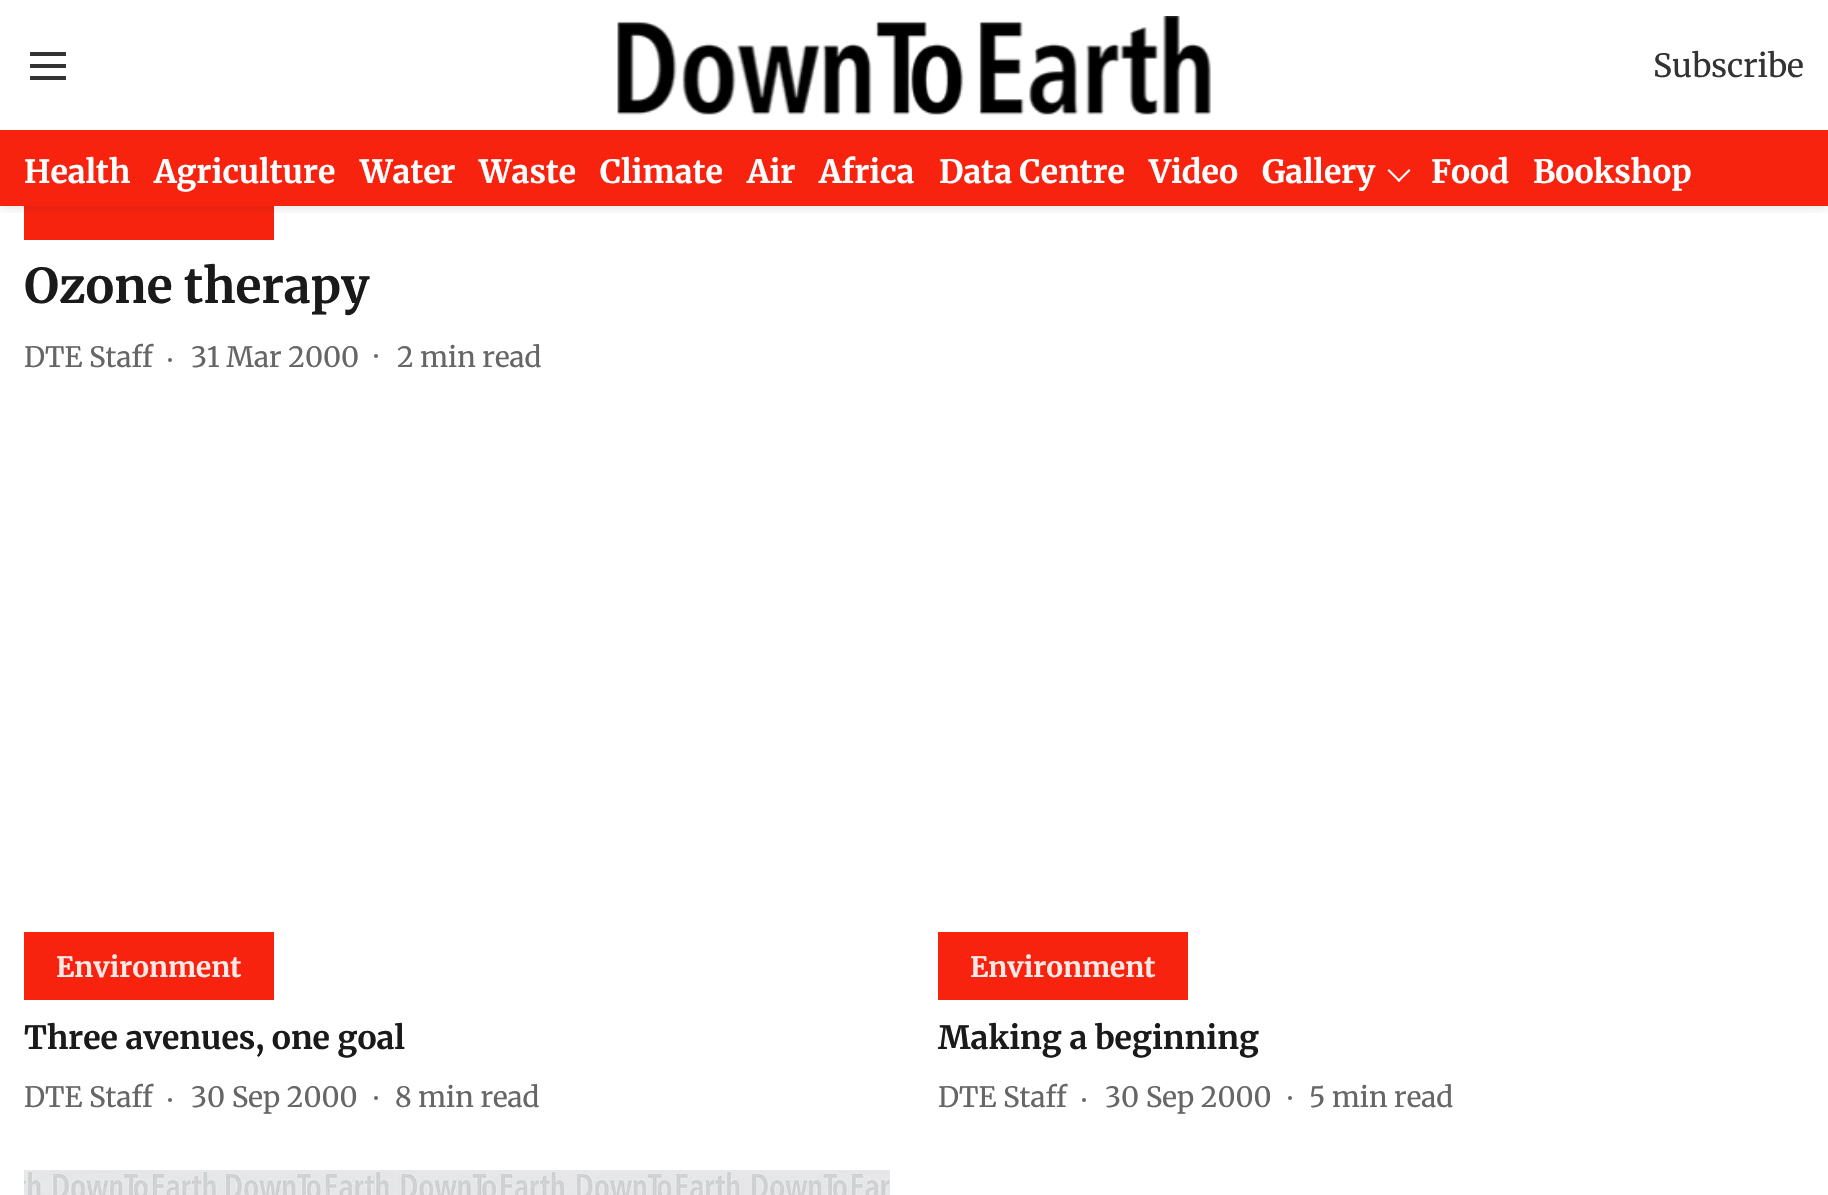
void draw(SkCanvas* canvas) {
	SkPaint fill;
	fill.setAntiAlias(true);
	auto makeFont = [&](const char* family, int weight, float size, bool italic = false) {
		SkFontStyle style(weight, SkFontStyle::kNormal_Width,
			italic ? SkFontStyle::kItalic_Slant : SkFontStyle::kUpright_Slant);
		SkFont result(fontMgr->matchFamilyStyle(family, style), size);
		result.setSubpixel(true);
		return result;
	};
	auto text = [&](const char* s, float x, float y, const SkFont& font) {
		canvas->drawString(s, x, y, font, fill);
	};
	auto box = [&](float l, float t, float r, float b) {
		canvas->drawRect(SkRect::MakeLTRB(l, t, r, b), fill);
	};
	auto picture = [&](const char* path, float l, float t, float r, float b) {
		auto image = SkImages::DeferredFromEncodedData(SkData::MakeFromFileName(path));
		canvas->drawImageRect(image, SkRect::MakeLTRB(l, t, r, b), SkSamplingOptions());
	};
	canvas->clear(0xFFFFFFFF);
	fill.setColor(0xFFF7230F);
	box(24, 206, 274, 240);
	canvas->save();
	canvas->clipRect(SkRect::MakeLTRB(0, 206, 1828, 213));
	fill.setColor(0x1A000000);
	fill.setMaskFilter(SkMaskFilter::MakeBlur(kNormal_SkBlurStyle, 6));
	canvas->drawRect(SkRect::MakeLTRB(0, 2, 1828, 208), fill);
	fill.setMaskFilter(nullptr);
	canvas->restore();
	picture("image0.png", 30, 52, 66, 80);
	picture("image1.png", 617, 16, 1211, 115);
	fill.setColor(0xFFF7230F);
	box(0, 130, 1828, 206);
	fill.setColor(0xFFFFFFFF);
	canvas->drawPath(SkPathBuilder().moveTo(1409, 169).lineTo(1410.5f, 170.5f).lineTo(1399, 182).lineTo(1397.5f, 180.5f).close().detach(), fill);
	canvas->drawPath(SkPathBuilder().moveTo(1389, 169).lineTo(1400.5f, 180.5f).lineTo(1399, 182).lineTo(1387.5f, 170.5f).close().detach(), fill);
	fill.setColor(0xFF666666);
	canvas->drawCircle(170, 360, 2, fill);
	canvas->drawCircle(376, 356, 2, fill);
	fill.setColor(0xFFF7230F);
	box(24, 932, 274, 1000);
	fill.setColor(0xFF666666);
	canvas->drawCircle(170, 1100, 2, fill);
	canvas->drawCircle(376, 1098, 2, fill);
	fill.setColor(0xFFF7230F);
	box(938, 932, 1188, 1000);
	fill.setColor(0xFF666666);
	canvas->drawCircle(1084, 1100, 2, fill);
	canvas->drawCircle(1290, 1098, 2, fill);
	picture("image2.png", 24, 1170, 890, 1195);
	auto font1 = makeFont("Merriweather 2", 300, 32);
	fill.setColor(0xFF333333);
	text("Subscribe", 1653, 77, font1);
	auto font2 = makeFont("Merriweather", 300, 32);
	fill.setColor(0xFFFFFFFF);
	text("Health", 24, 183, font2);
	text("Agriculture", 154, 183, font2);
	text("Water", 360, 183, font2);
	text("Waste", 479, 183, font2);
	text("Climate", 600, 183, font2);
	text("Air", 747, 183, font2);
	text("Africa", 819, 183, font2);
	text("Data Centre", 939, 183, font2);
	text("Video", 1149, 183, font2);
	text("Gallery", 1262, 183, font2);
	text("Food", 1431, 183, font2);
	text("Bookshop", 1533, 183, font2);
	auto font3 = makeFont("Merriweather", 300, 48);
	fill.setColor(0xFF1A1A1A);
	text("Ozone therapy", 24, 303, font3);
	auto font4 = makeFont("Merriweather 2", 300, 28);
	fill.setColor(0xFF666666);
	text("DTE Staff", 24, 367, font4);
	text("31 Mar 2000", 191, 367, font4);
	text("2 min read", 397, 367, font4);
	auto font5 = makeFont("Merriweather", 300, 28);
	fill.setColor(0xFFFEE9E7);
	text("Environment", 56, 977, font5);
	fill.setColor(0xFF1A1A1A);
	text("Three avenues, one goal", 24, 1049, font2);
	fill.setColor(0xFF666666);
	text("DTE Staff", 24, 1107, font4);
	text("30 Sep 2000", 191, 1107, font4);
	text("8 min read", 395, 1107, font4);
	fill.setColor(0xFFFEE9E7);
	text("Environment", 970, 977, font5);
	fill.setColor(0xFF1A1A1A);
	text("Making a beginning", 938, 1049, font2);
	fill.setColor(0xFF666666);
	text("DTE Staff", 938, 1107, font4);
	text("30 Sep 2000", 1105, 1107, font4);
	text("5 min read", 1309, 1107, font4);
}
